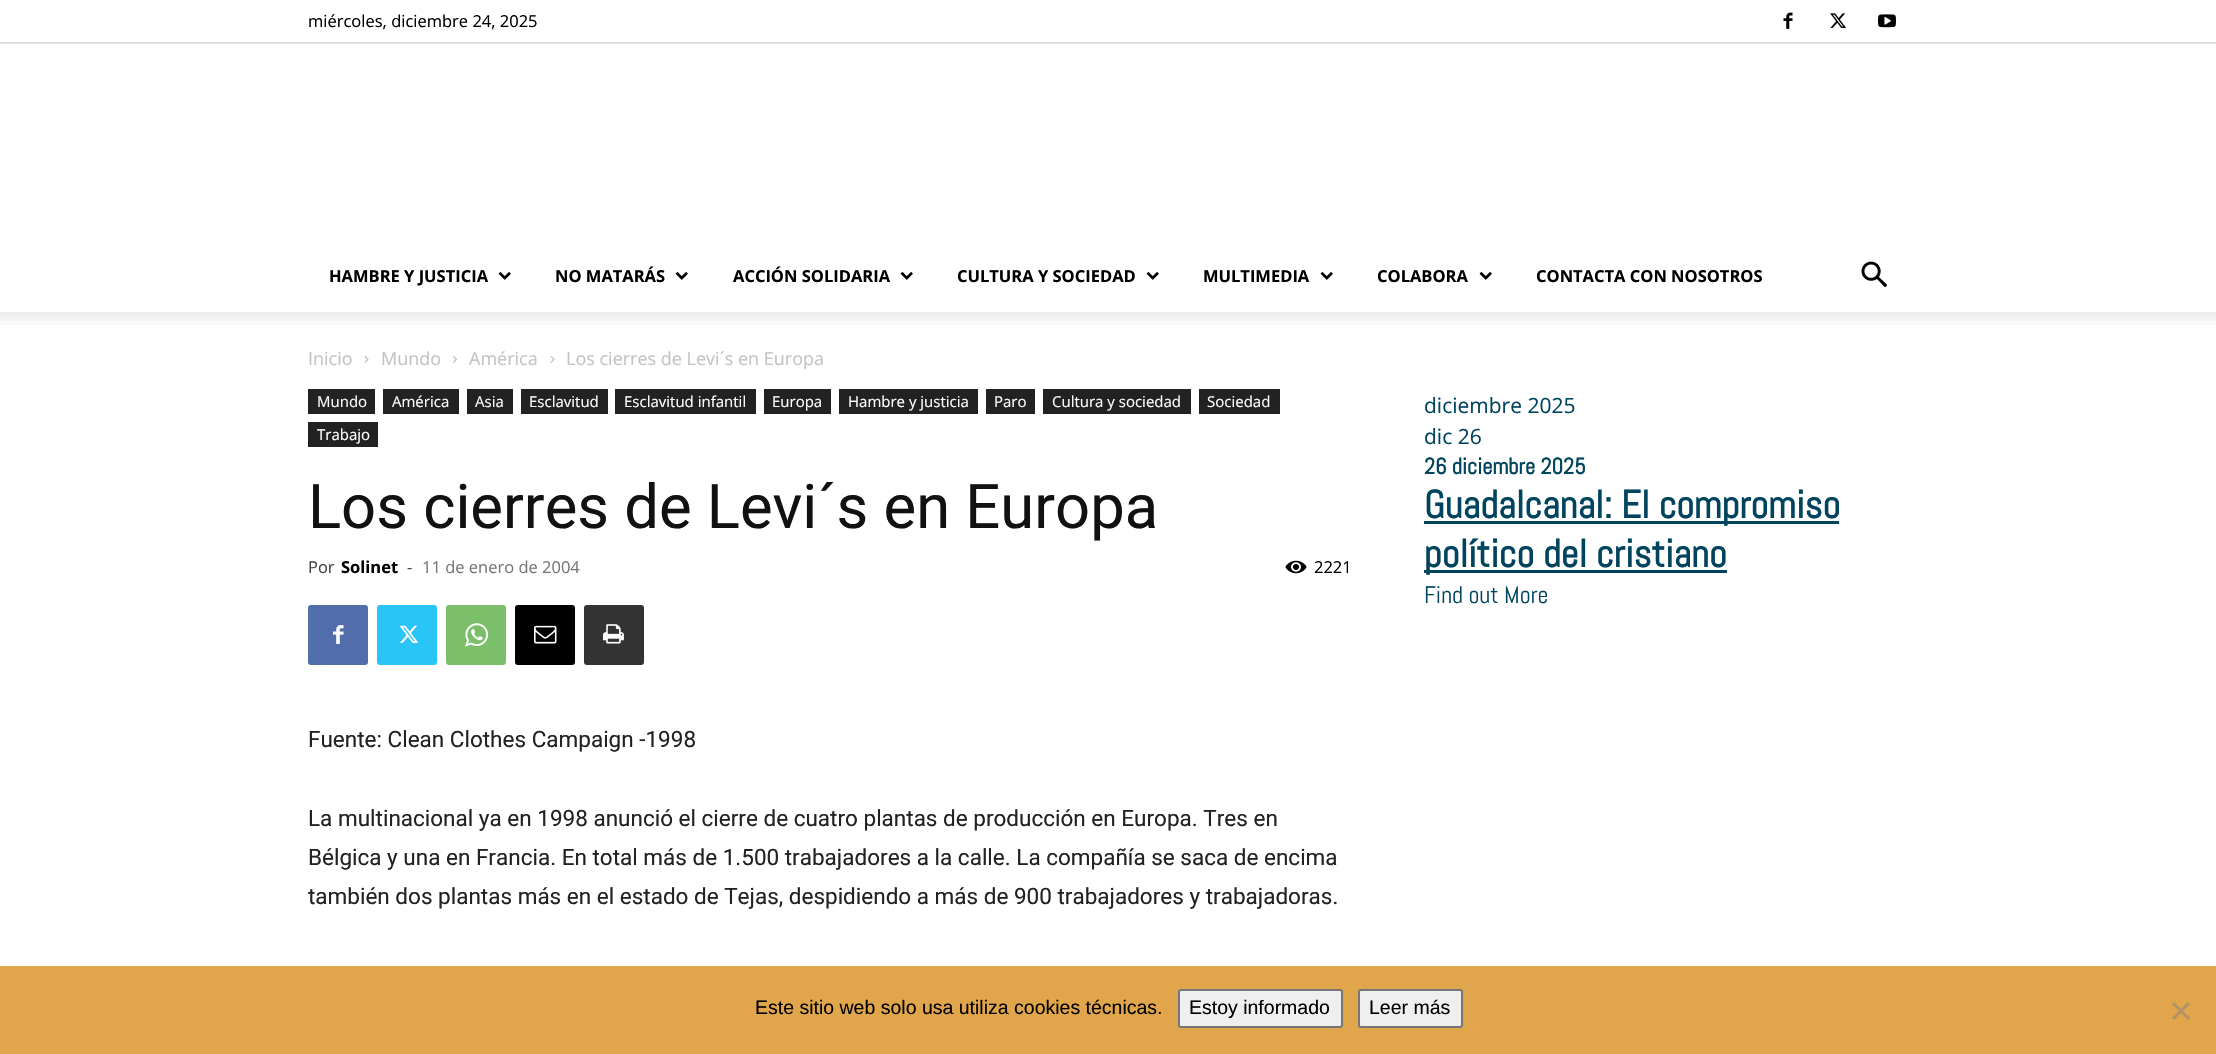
void draw(SkCanvas* canvas) {
	SkPaint fill;
	fill.setAntiAlias(true);
	auto makeFont = [&](const char* family, int weight, float size, bool italic = false) {
		SkFontStyle style(weight, SkFontStyle::kNormal_Width,
			italic ? SkFontStyle::kItalic_Slant : SkFontStyle::kUpright_Slant);
		SkFont result(fontMgr->matchFamilyStyle(family, style), size);
		result.setSubpixel(true);
		return result;
	};
	auto text = [&](const char* s, float x, float y, const SkFont& font) {
		canvas->drawString(s, x, y, font, fill);
	};
	auto box = [&](float l, float t, float r, float b) {
		canvas->drawRect(SkRect::MakeLTRB(l, t, r, b), fill);
	};
	auto roundBox = [&](float l, float t, float r, float b, float radius) {
		canvas->drawRoundRect(SkRect::MakeLTRB(l, t, r, b), radius, radius, fill);
	};
	auto picture = [&](const char* path, float l, float t, float r, float b) {
		auto image = SkImages::DeferredFromEncodedData(SkData::MakeFromFileName(path));
		canvas->drawImageRect(image, SkRect::MakeLTRB(l, t, r, b), SkSamplingOptions());
	};
	canvas->clear(0xFFFFFFFF);
	fill.setColor(0xFFE0E0E0);
	box(0, 42, 2216, 44);
	picture("image0.png", 1783, 12, 1793, 29);
	picture("image1.png", 1830, 13, 1846, 28);
	picture("image2.png", 1878, 14, 1896, 28);
	picture("image3.png", 498, 272, 511, 280);
	picture("image3.png", 675, 272, 688, 280);
	picture("image3.png", 900, 272, 913, 280);
	picture("image3.png", 1146, 272, 1159, 280);
	picture("image3.png", 1320, 272, 1333, 280);
	picture("image3.png", 1479, 272, 1492, 280);
	picture("image4.png", 1861, 261, 1887, 287);
	picture("image5.png", 0, 312, 2216, 325);
	picture("image6.png", 364, 356, 369, 363);
	picture("image7.png", 453, 356, 457, 363);
	picture("image6.png", 550, 356, 555, 363);
	fill.setColor(0xFF222222);
	box(308, 389, 375, 414);
	box(383, 389, 459, 414);
	box(467, 389, 513, 414);
	box(521, 389, 608, 414);
	box(615, 389, 756, 414);
	box(764, 389, 831, 414);
	box(839, 389, 978, 414);
	box(986, 389, 1035, 414);
	box(1043, 389, 1191, 414);
	box(1199, 389, 1280, 414);
	box(308, 422, 378, 447);
	picture("image8.png", 1285, 560, 1307, 574);
	fill.setColor(0xFF516EAB);
	roundBox(308, 605, 368, 665, 3);
	picture("image9.png", 333, 625, 344, 644);
	fill.setColor(0xFF29C5F6);
	roundBox(377, 605, 437, 665, 3);
	picture("image10.png", 399, 625, 419, 643);
	fill.setColor(0xFF7BBF6A);
	roundBox(446, 605, 506, 665, 3);
	picture("image11.png", 465, 623, 489, 647);
	fill.setColor(0xFF000000);
	roundBox(515, 605, 575, 665, 3);
	picture("image12.png", 534, 625, 557, 644);
	fill.setColor(0xFF333333);
	roundBox(584, 605, 644, 665, 3);
	picture("image13.png", 603, 624, 624, 644);
	fill.setColor(0xFF00445E);
	box(1424, 521, 1839, 524);
	box(1424, 570, 1727, 573);
	fill.setColor(0xE0DD9933);
	box(0, 966, 2216, 1054);
	fill.setColor(0xFFEFEFEF);
	canvas->drawRoundRect(SkRect::MakeLTRB(1179, 990, 1342, 1027), 2, 2, fill);
	fill.setStyle(SkPaint::kStroke_Style);
	fill.setStrokeWidth(2);
	fill.setColor(0xFF767676);
	canvas->drawRoundRect(SkRect::MakeLTRB(1179, 990, 1342, 1027), 2, 2, fill);
	fill.setStyle(SkPaint::kFill_Style);
	fill.setColor(0xFFEFEFEF);
	canvas->drawRoundRect(SkRect::MakeLTRB(1359, 990, 1462, 1027), 2, 2, fill);
	fill.setStyle(SkPaint::kStroke_Style);
	fill.setColor(0xFF767676);
	canvas->drawRoundRect(SkRect::MakeLTRB(1359, 990, 1462, 1027), 2, 2, fill);
	fill.setStyle(SkPaint::kFill_Style);
	fill.setColor(0xFFB19366);
	canvas->drawPath(SkPathBuilder().moveTo(2188, 1002).lineTo(2190, 1004).lineTo(2174, 1020).lineTo(2172, 1018).close().detach(), fill);
	canvas->drawPath(SkPathBuilder().moveTo(2172, 1004).lineTo(2174, 1002).lineTo(2190, 1018).lineTo(2188, 1020).close().detach(), fill);
	auto font1 = makeFont("Open Sans", 400, 16.5f);
	fill.setColor(0xFF000000);
	text("miércoles, diciembre 24, 2025", 308, 27, font1);
	auto font2 = makeFont("Open Sans", 700, 16.5f);
	text("HAMBRE Y JUSTICIA", 329, 282, font2);
	text("NO MATARÁS", 555, 282, font2);
	text("ACCIÓN SOLIDARIA", 733, 282, font2);
	text("CULTURA Y SOCIEDAD", 957, 282, font2);
	text("MULTIMEDIA", 1203, 282, font2);
	text("COLABORA", 1377, 282, font2);
	text("CONTACTA CON NOSOTROS", 1536, 282, font2);
	auto font3 = makeFont("Open Sans", 400, 18);
	fill.setColor(0xFFC3C3C3);
	text("Inicio", 308, 365, font3);
	text("Mundo", 381, 365, font3);
	text("América", 469, 365, font3);
	text("Los cierres de Levi´s en Europa", 566, 365, font3);
	auto font4 = makeFont("Open Sans", 400, 15);
	fill.setColor(0xFFFFFFFF);
	text("Mundo", 317, 407, font4);
	text("América", 392, 407, font4);
	text("Asia", 475, 407, font4);
	text("Esclavitud", 529, 407, font4);
	text("Esclavitud infantil", 624, 407, font4);
	text("Europa", 772, 407, font4);
	text("Hambre y justicia", 848, 407, font4);
	text("Paro", 994, 407, font4);
	text("Cultura y sociedad", 1052, 407, font4);
	text("Sociedad", 1207, 407, font4);
	text("Trabajo", 317, 440, font4);
	auto font5 = makeFont("Roboto", 400, 61.5f);
	fill.setColor(0xFF111111);
	text("Los cierres de Levi´s en Europa", 308, 528, font5);
	fill.setColor(0xFF444444);
	text("Por", 308, 573, font1);
	fill.setColor(0xFF000000);
	text("Solinet", 341, 573, font2);
	fill.setColor(0xFF444444);
	text("-", 407, 573, font1);
	fill.setColor(0xFF767676);
	text("11 de enero de 2004", 422, 573, font1);
	fill.setColor(0xFF000000);
	text("2221", 1314, 573, font1);
	auto font6 = makeFont("Roboto", 400, 22.5f);
	fill.setColor(0xFF222222);
	text("Fuente: Clean Clothes Campaign -1998", 308, 747, font6);
	text("La multinacional ya en 1998 anunció el cierre de cuatro plantas de producción en Europa. Tres en", 308, 826, font6);
	text("Bélgica y una en Francia. En total más de 1.500 trabajadores a la calle. La compañía se saca de encima", 308, 865, font6);
	text("también dos plantas más en el estado de Tejas, despidiendo a más de 900 trabajadores y trabajadoras.", 308, 904, font6);
	auto font7 = makeFont("Open Sans", 400, 21);
	fill.setColor(0xFF00445E);
	text("diciembre 2025", 1424, 413, font7);
	text("dic 26", 1424, 444, font7);
	auto font8 = makeFont("Abel", 700, 22.5f);
	text("26 diciembre 2025", 1424, 474, font8);
	auto font9 = makeFont("Abel", 700, 39);
	text("Guadalcanal: El compromiso", 1424, 518, font9);
	text("político del cristiano", 1424, 567, font9);
	auto font10 = makeFont("Abel", 400, 24);
	text("Find out More", 1424, 603, font10);
	auto font11 = makeFont("Liberation Sans", 400, 19.5f);
	fill.setColor(0xFF000000);
	text("Este sitio web solo usa utiliza cookies técnicas.", 755, 1014, font11);
	text("Estoy informado", 1189, 1014, font11);
	text("Leer más", 1369, 1014, font11);
}
